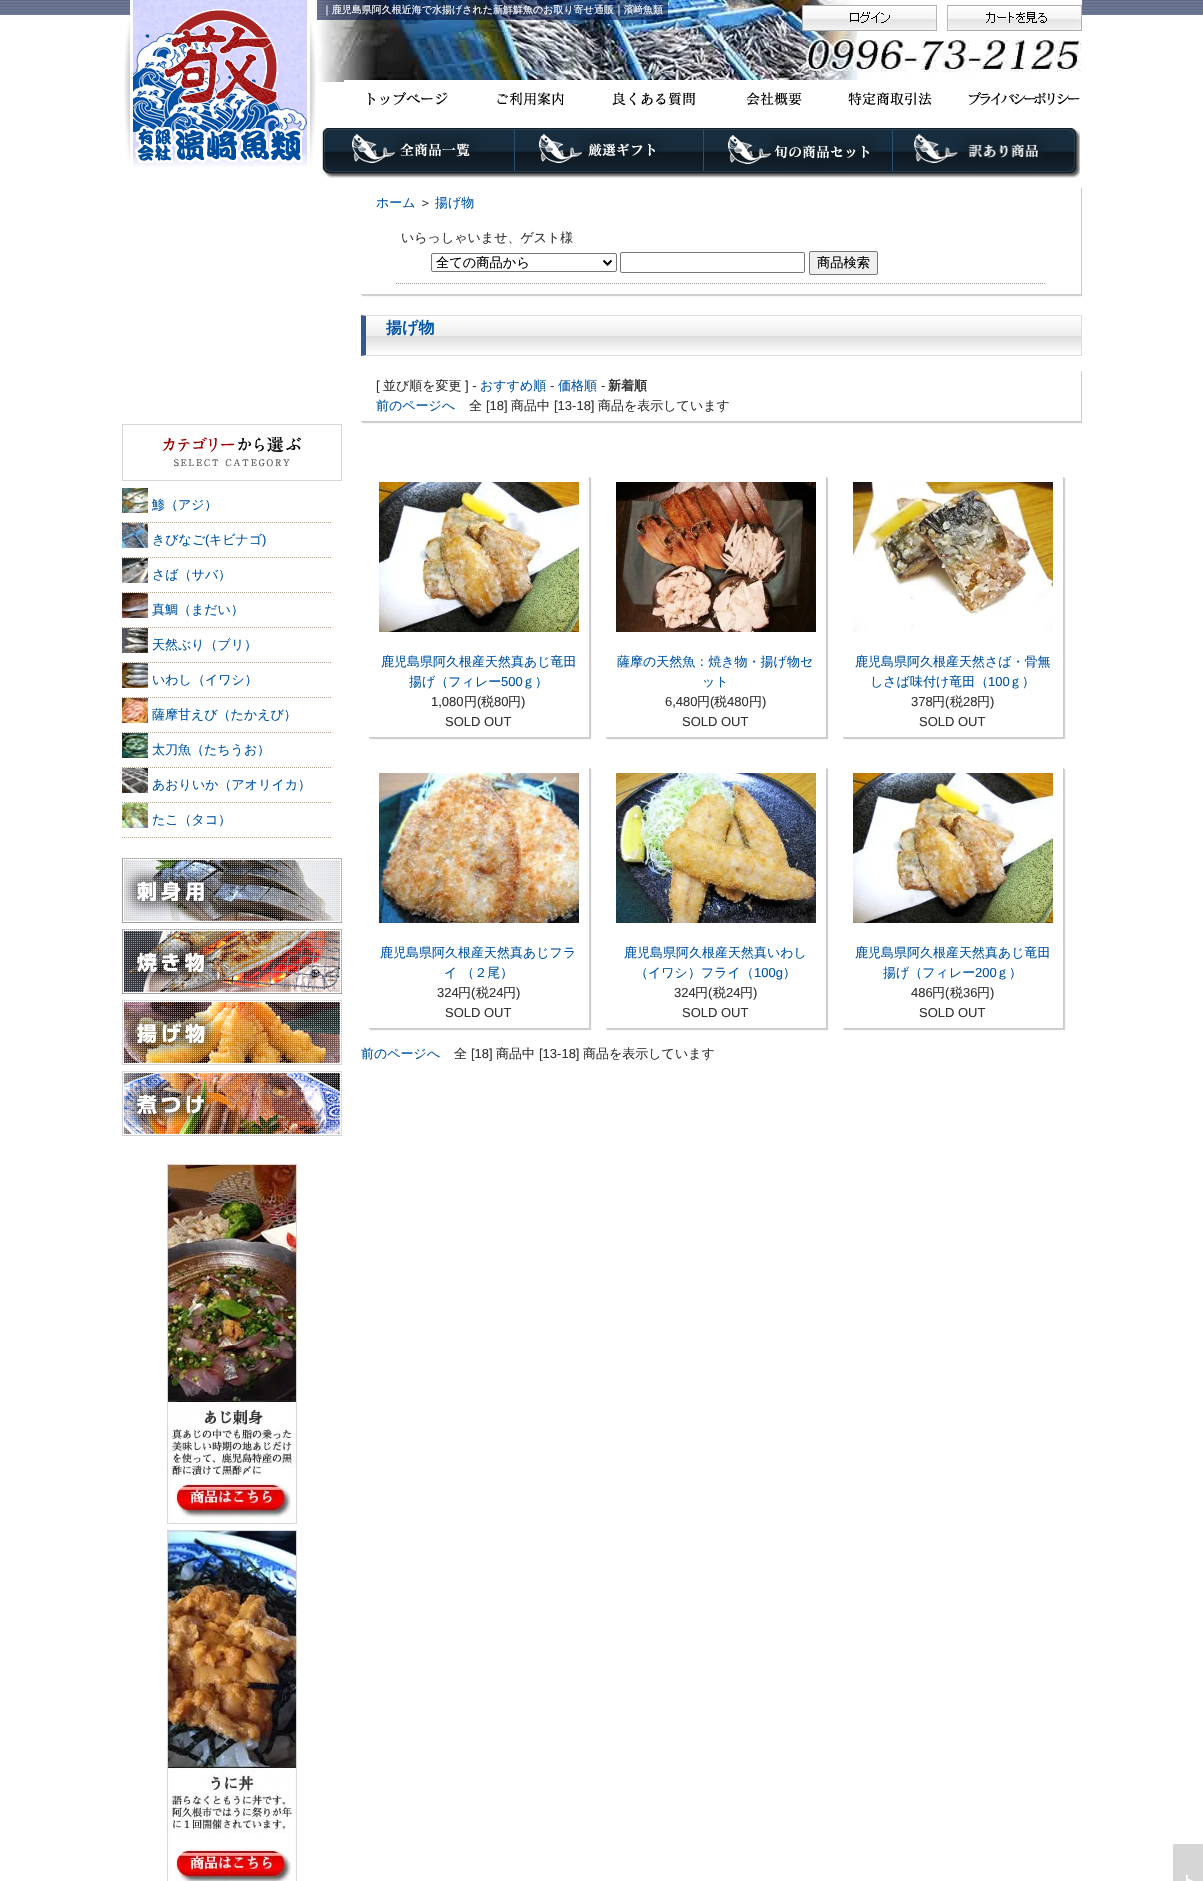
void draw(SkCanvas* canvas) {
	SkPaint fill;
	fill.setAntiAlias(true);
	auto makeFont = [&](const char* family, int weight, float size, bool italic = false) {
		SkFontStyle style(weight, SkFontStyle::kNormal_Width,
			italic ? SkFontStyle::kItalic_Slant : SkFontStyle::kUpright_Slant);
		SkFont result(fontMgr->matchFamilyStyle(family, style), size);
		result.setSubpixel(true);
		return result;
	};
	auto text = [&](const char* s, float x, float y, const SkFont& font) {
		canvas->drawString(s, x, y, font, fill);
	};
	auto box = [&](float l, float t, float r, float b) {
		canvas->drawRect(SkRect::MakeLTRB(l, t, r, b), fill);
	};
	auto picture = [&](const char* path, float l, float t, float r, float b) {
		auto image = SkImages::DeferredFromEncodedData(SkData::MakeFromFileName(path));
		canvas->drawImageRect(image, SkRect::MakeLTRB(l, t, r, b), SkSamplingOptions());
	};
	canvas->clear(0xFFFFFFFF);
	picture("image0.png", 0, 0, 1203, 15);
	picture("image1.png", 310, 0, 1082, 82);
	picture("image2.png", 124, 0, 316, 167);
	picture("image3.png", 317, 0, 668, 20);
	picture("image4.png", 802, 5, 937, 31);
	picture("image5.png", 947, 5, 1082, 31);
	picture("image6.png", 344, 80, 1080, 106);
	picture("image7.png", 322, 128, 515, 178);
	picture("image8.png", 515, 128, 704, 178);
	picture("image9.png", 704, 128, 895, 178);
	picture("image10.png", 895, 128, 1080, 178);
	picture("image11.png", 122, 424, 342, 481);
	picture("image12.png", 122, 488, 148, 513);
	fill.setStyle(SkPaint::kStroke_Style);
	fill.setStrokeWidth(1);
	fill.setColor(0xFFB2A691);
	fill.setPathEffect(SkDashPathEffect::Make({{1, 1}}, 0));
	canvas->drawPath(SkPathBuilder().moveTo(122, 522.5f).lineTo(332, 522.5f).detach(), fill);
	fill.setPathEffect(nullptr);
	picture("image13.png", 122, 523, 148, 548);
	fill.setPathEffect(SkDashPathEffect::Make({{1, 1}}, 0));
	canvas->drawPath(SkPathBuilder().moveTo(122, 557.5f).lineTo(332, 557.5f).detach(), fill);
	fill.setPathEffect(nullptr);
	picture("image14.png", 122, 558, 148, 583);
	fill.setPathEffect(SkDashPathEffect::Make({{1, 1}}, 0));
	canvas->drawPath(SkPathBuilder().moveTo(122, 592.5f).lineTo(332, 592.5f).detach(), fill);
	fill.setPathEffect(nullptr);
	picture("image15.png", 122, 593, 148, 618);
	fill.setPathEffect(SkDashPathEffect::Make({{1, 1}}, 0));
	canvas->drawPath(SkPathBuilder().moveTo(122, 627.5f).lineTo(332, 627.5f).detach(), fill);
	fill.setPathEffect(nullptr);
	picture("image16.png", 122, 628, 148, 653);
	fill.setPathEffect(SkDashPathEffect::Make({{1, 1}}, 0));
	canvas->drawPath(SkPathBuilder().moveTo(122, 662.5f).lineTo(332, 662.5f).detach(), fill);
	fill.setPathEffect(nullptr);
	picture("image17.png", 122, 663, 148, 688);
	fill.setPathEffect(SkDashPathEffect::Make({{1, 1}}, 0));
	canvas->drawPath(SkPathBuilder().moveTo(122, 697.5f).lineTo(332, 697.5f).detach(), fill);
	fill.setPathEffect(nullptr);
	picture("image18.png", 122, 698, 148, 723);
	fill.setPathEffect(SkDashPathEffect::Make({{1, 1}}, 0));
	canvas->drawPath(SkPathBuilder().moveTo(122, 732.5f).lineTo(332, 732.5f).detach(), fill);
	fill.setPathEffect(nullptr);
	picture("image19.png", 122, 733, 148, 758);
	fill.setPathEffect(SkDashPathEffect::Make({{1, 1}}, 0));
	canvas->drawPath(SkPathBuilder().moveTo(122, 767.5f).lineTo(332, 767.5f).detach(), fill);
	fill.setPathEffect(nullptr);
	picture("image20.png", 122, 768, 148, 793);
	fill.setPathEffect(SkDashPathEffect::Make({{1, 1}}, 0));
	canvas->drawPath(SkPathBuilder().moveTo(122, 802.5f).lineTo(332, 802.5f).detach(), fill);
	fill.setPathEffect(nullptr);
	picture("image21.png", 122, 803, 148, 828);
	fill.setPathEffect(SkDashPathEffect::Make({{1, 1}}, 0));
	canvas->drawPath(SkPathBuilder().moveTo(122, 837.5f).lineTo(332, 837.5f).detach(), fill);
	fill.setPathEffect(nullptr);
	picture("image22.png", 122, 858, 342, 923);
	picture("image23.png", 122, 929, 342, 994);
	picture("image24.png", 122, 1000, 342, 1065);
	picture("image25.png", 122, 1071, 342, 1136);
	picture("image26.png", 167, 1164, 297, 1524);
	picture("image27.png", 167, 1530, 297, 1881);
	canvas->save();
	canvas->clipRect(SkRect::MakeLTRB(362, 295, 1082, 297));
	fill.setStyle(SkPaint::kFill_Style);
	fill.setColor(0x33191919);
	fill.setMaskFilter(SkMaskFilter::MakeBlur(kNormal_SkBlurStyle, 0.5f));
	canvas->drawRect(SkRect::MakeLTRB(362, 189, 1083, 296), fill);
	fill.setMaskFilter(nullptr);
	canvas->restore();
	fill.setColor(0xFFCCCCCC);
	box(1081, 188, 1082, 295);
	box(361, 294, 1082, 295);
	fill.setStyle(SkPaint::kStroke_Style);
	fill.setColor(0xFF999999);
	fill.setPathEffect(SkDashPathEffect::Make({{1, 1}}, 0));
	canvas->drawPath(SkPathBuilder().moveTo(396, 283.5f).lineTo(1046, 283.5f).detach(), fill);
	fill.setPathEffect(nullptr);
	fill.setColor(0xFF767676);
	canvas->drawRoundRect(SkRect::MakeLTRB(431.5f, 253.5f, 616.5f, 271.5f), 1.5f, 1.5f, fill);
	fill.setStrokeWidth(2);
	fill.setColor(0xFF000000);
	canvas->drawPath(SkPathBuilder().moveTo(603.5f, 260.5f).lineTo(607.5f, 264.5f).lineTo(611.5f, 260.5f).detach(), fill);
	fill.setStrokeWidth(1);
	fill.setColor(0xFF767676);
	canvas->drawRoundRect(SkRect::MakeLTRB(620.5f, 252.5f, 804.5f, 272.5f), 1.5f, 1.5f, fill);
	fill.setStyle(SkPaint::kFill_Style);
	fill.setColor(0xFFEFEFEF);
	canvas->drawRoundRect(SkRect::MakeLTRB(809.5f, 251.5f, 877.5f, 274.5f), 1.5f, 1.5f, fill);
	fill.setStyle(SkPaint::kStroke_Style);
	fill.setColor(0xFF767676);
	canvas->drawRoundRect(SkRect::MakeLTRB(809.5f, 251.5f, 877.5f, 274.5f), 1.5f, 1.5f, fill);
	fill.setStyle(SkPaint::kFill_Style);
	{
		const SkColor colors[] = {0xFFFFFFFF, 0xFFEEEEEE, 0xFFDDDDDD, 0xFFFFFFFF};
		const float stops[] = {0, 0.5f, 0.51f, 1};
		const SkPoint ends[] = {{366, 316}, {366, 355}};
		fill.setShader(SkGradientShader::MakeLinear(ends, colors, stops, 4, SkTileMode::kClamp));
		fill.setAlpha(255);
	}
	box(366, 319, 1081, 354);
	fill.setShader(nullptr);
	fill.setColor(0xFFDDDDDD);
	canvas->drawPath(SkPathBuilder().moveTo(361, 315).lineTo(1082, 315).lineTo(1081, 316).lineTo(366, 316).close().detach(), fill);
	box(1081, 315, 1082, 356);
	canvas->drawPath(SkPathBuilder().moveTo(1082, 356).lineTo(361, 356).lineTo(366, 355).lineTo(1081, 355).close().detach(), fill);
	fill.setColor(0xFF325B8D);
	canvas->drawPath(SkPathBuilder().moveTo(361, 356).lineTo(361, 315).lineTo(366, 316).lineTo(366, 355).close().detach(), fill);
	canvas->save();
	canvas->clipRect(SkRect::MakeLTRB(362, 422, 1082, 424));
	fill.setColor(0x33191919);
	fill.setMaskFilter(SkMaskFilter::MakeBlur(kNormal_SkBlurStyle, 0.5f));
	canvas->drawRect(SkRect::MakeLTRB(362, 372, 1083, 423), fill);
	fill.setMaskFilter(nullptr);
	canvas->restore();
	fill.setColor(0xFFCCCCCC);
	box(1081, 371, 1082, 422);
	box(361, 421, 1082, 422);
	canvas->save();
	canvas->clipPath(SkPathBuilder(SkPathFillType::kEvenOdd).moveTo(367, 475).lineTo(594, 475).lineTo(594, 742).lineTo(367, 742).close().moveTo(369, 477).lineTo(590, 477).lineTo(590, 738).lineTo(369, 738).close().detach(), true);
	fill.setColor(0x33191919);
	fill.setMaskFilter(SkMaskFilter::MakeBlur(kNormal_SkBlurStyle, 0.5f));
	canvas->drawRect(SkRect::MakeLTRB(370, 478, 591, 739), fill);
	fill.setMaskFilter(nullptr);
	canvas->restore();
	fill.setColor(0xFFCCCCCC);
	box(589, 477, 590, 738);
	box(369, 737, 590, 738);
	picture("image28.png", 379, 482, 579, 632);
	canvas->save();
	canvas->clipPath(SkPathBuilder(SkPathFillType::kEvenOdd).moveTo(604, 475).lineTo(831, 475).lineTo(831, 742).lineTo(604, 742).close().moveTo(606, 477).lineTo(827, 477).lineTo(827, 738).lineTo(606, 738).close().detach(), true);
	fill.setColor(0x33191919);
	fill.setMaskFilter(SkMaskFilter::MakeBlur(kNormal_SkBlurStyle, 0.5f));
	canvas->drawRect(SkRect::MakeLTRB(607, 478, 828, 739), fill);
	fill.setMaskFilter(nullptr);
	canvas->restore();
	fill.setColor(0xFFCCCCCC);
	box(826, 477, 827, 738);
	box(606, 737, 827, 738);
	picture("image29.png", 616, 482, 816, 632);
	canvas->save();
	canvas->clipPath(SkPathBuilder(SkPathFillType::kEvenOdd).moveTo(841, 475).lineTo(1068, 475).lineTo(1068, 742).lineTo(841, 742).close().moveTo(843, 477).lineTo(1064, 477).lineTo(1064, 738).lineTo(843, 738).close().detach(), true);
	fill.setColor(0x33191919);
	fill.setMaskFilter(SkMaskFilter::MakeBlur(kNormal_SkBlurStyle, 0.5f));
	canvas->drawRect(SkRect::MakeLTRB(844, 478, 1065, 739), fill);
	fill.setMaskFilter(nullptr);
	canvas->restore();
	fill.setColor(0xFFCCCCCC);
	box(1063, 477, 1064, 738);
	box(843, 737, 1064, 738);
	picture("image30.png", 853, 482, 1053, 632);
	canvas->save();
	canvas->clipPath(SkPathBuilder(SkPathFillType::kEvenOdd).moveTo(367, 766).lineTo(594, 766).lineTo(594, 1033).lineTo(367, 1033).close().moveTo(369, 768).lineTo(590, 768).lineTo(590, 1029).lineTo(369, 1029).close().detach(), true);
	fill.setColor(0x33191919);
	fill.setMaskFilter(SkMaskFilter::MakeBlur(kNormal_SkBlurStyle, 0.5f));
	canvas->drawRect(SkRect::MakeLTRB(370, 769, 591, 1030), fill);
	fill.setMaskFilter(nullptr);
	canvas->restore();
	fill.setColor(0xFFCCCCCC);
	box(589, 768, 590, 1029);
	box(369, 1028, 590, 1029);
	picture("image31.png", 379, 773, 579, 923);
	canvas->save();
	canvas->clipPath(SkPathBuilder(SkPathFillType::kEvenOdd).moveTo(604, 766).lineTo(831, 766).lineTo(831, 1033).lineTo(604, 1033).close().moveTo(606, 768).lineTo(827, 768).lineTo(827, 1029).lineTo(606, 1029).close().detach(), true);
	fill.setColor(0x33191919);
	fill.setMaskFilter(SkMaskFilter::MakeBlur(kNormal_SkBlurStyle, 0.5f));
	canvas->drawRect(SkRect::MakeLTRB(607, 769, 828, 1030), fill);
	fill.setMaskFilter(nullptr);
	canvas->restore();
	fill.setColor(0xFFCCCCCC);
	box(826, 768, 827, 1029);
	box(606, 1028, 827, 1029);
	picture("image32.png", 616, 773, 816, 923);
	canvas->save();
	canvas->clipPath(SkPathBuilder(SkPathFillType::kEvenOdd).moveTo(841, 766).lineTo(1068, 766).lineTo(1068, 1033).lineTo(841, 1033).close().moveTo(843, 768).lineTo(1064, 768).lineTo(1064, 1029).lineTo(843, 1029).close().detach(), true);
	fill.setColor(0x33191919);
	fill.setMaskFilter(SkMaskFilter::MakeBlur(kNormal_SkBlurStyle, 0.5f));
	canvas->drawRect(SkRect::MakeLTRB(844, 769, 1065, 1030), fill);
	fill.setMaskFilter(nullptr);
	canvas->restore();
	fill.setColor(0xFFCCCCCC);
	box(1063, 768, 1064, 1029);
	box(843, 1028, 1064, 1029);
	picture("image28.png", 853, 773, 1053, 923);
	picture("image33.png", 1173, 1844, 1203, 1881);
	auto font1 = makeFont("WenQuanYi Zen Hei", 500, 10);
	fill.setColor(0xFFFFFFFF);
	text("｜鹿児島県阿久根近海で水揚げされた新鮮鮮魚のお取り寄せ通販｜濱", 322, 13, font1);
	auto font2 = makeFont("IPAPGothic", 400, 10);
	text("﨑", 633, 13, font2);
	text("魚類", 643, 13, font1);
	auto font3 = makeFont("WenQuanYi Zen Hei", 500, 13);
	fill.setColor(0xFF0054A7);
	text("鯵（アジ）", 152, 509, font3);
	text("きびなご", 152, 544, font3);
	auto font4 = makeFont("Liberation Sans", 400, 13);
	text("(", 205, 544, font4);
	text("キビナゴ", 209, 544, font3);
	text(")", 262, 544, font4);
	text("さば（サバ）", 152, 579, font3);
	text("真鯛（まだい）", 152, 614, font3);
	text("天然ぶり（ブリ）", 152, 649, font3);
	text("いわし（イワシ）", 152, 684, font3);
	text("薩摩甘えび（たかえび）", 152, 719, font3);
	text("太刀魚（たちうお）", 152, 754, font3);
	text("あおりいか（アオリイカ）", 152, 789, font3);
	text("たこ（タコ）", 152, 824, font3);
	text("ホーム", 376, 207, font3);
	fill.setColor(0xFF333333);
	text("＞", 419, 207, font3);
	fill.setColor(0xFF0054A7);
	text("揚げ物", 435, 207, font3);
	fill.setColor(0xFF333333);
	text("いらっしゃいませ、ゲスト様", 401, 242, font3);
	auto font5 = makeFont("WenQuanYi Zen Hei", 500, 13.25f);
	fill.setColor(0xFF000000);
	text("全ての商品から", 436, 267, font5);
	text("商品検索", 817, 267, font5);
	auto font6 = makeFont("WenQuanYi Zen Hei", 700, 16);
	fill.setColor(0xFF0054A7);
	text("揚げ物", 386, 333, font6);
	fill.setColor(0xFF333333);
	text("[", 376, 390, font4);
	text("並び順を変更", 383, 390, font3);
	text("] -", 465, 390, font4);
	fill.setColor(0xFF0054A7);
	text("おすすめ順", 480, 390, font3);
	fill.setColor(0xFF333333);
	text("-", 550, 390, font4);
	fill.setColor(0xFF0054A7);
	text("価格順", 558, 390, font3);
	fill.setColor(0xFF333333);
	text("-", 601, 390, font4);
	auto font7 = makeFont("WenQuanYi Zen Hei", 700, 13);
	text("新着順", 608, 390, font7);
	fill.setColor(0xFF0054A7);
	text("前のページへ", 376, 410, font3);
	fill.setColor(0xFF333333);
	text("全", 469, 410, font3);
	text("[18]", 486, 410, font4);
	text("商品中", 511, 410, font3);
	text("[13-18]", 554, 410, font4);
	text("商品を表示しています", 598, 410, font3);
	fill.setColor(0xFF0054A7);
	text("鹿児島県阿久根産天然真あじ竜田", 381, 666, font3);
	text("揚げ（フィレー", 409, 686, font3);
	text("500", 501, 686, font4);
	text("ｇ）", 522, 686, font3);
	fill.setColor(0xFF333333);
	text("1,080", 431, 706, font4);
	text("円", 464, 706, font3);
	text("(", 477, 706, font4);
	text("税", 481, 706, font3);
	text("80", 494, 706, font4);
	text("円", 508, 706, font3);
	text(")", 521, 706, font4);
	text("SOLD OUT", 445, 726, font4);
	fill.setColor(0xFF0054A7);
	text("薩摩の天然魚：焼き物・揚げ物セ", 617, 666, font3);
	text("ット", 702, 686, font3);
	fill.setColor(0xFF333333);
	text("6,480", 665, 706, font4);
	text("円", 697, 706, font3);
	text("(", 710, 706, font4);
	text("税", 714, 706, font3);
	text("480", 727, 706, font4);
	text("円", 749, 706, font3);
	text(")", 762, 706, font4);
	text("SOLD OUT", 682, 726, font4);
	fill.setColor(0xFF0054A7);
	text("鹿児島県阿久根産天然さば・骨無", 855, 666, font3);
	text("しさば味付け竜田（", 870, 686, font3);
	text("100", 988, 686, font4);
	text("ｇ）", 1009, 686, font3);
	fill.setColor(0xFF333333);
	text("378", 911, 706, font4);
	text("円", 932, 706, font3);
	text("(", 945, 706, font4);
	text("税", 950, 706, font3);
	text("28", 963, 706, font4);
	text("円", 977, 706, font3);
	text(")", 990, 706, font4);
	text("SOLD OUT", 919, 726, font4);
	fill.setColor(0xFF0054A7);
	text("鹿児島県阿久根産天然真あじフラ", 380, 957, font3);
	text("イ （２尾）", 444, 977, font3);
	fill.setColor(0xFF333333);
	text("324", 437, 997, font4);
	text("円", 458, 997, font3);
	text("(", 471, 997, font4);
	text("税", 476, 997, font3);
	text("24", 489, 997, font4);
	text("円", 503, 997, font3);
	text(")", 516, 997, font4);
	text("SOLD OUT", 445, 1017, font4);
	fill.setColor(0xFF0054A7);
	text("鹿児島県阿久根産天然真いわし", 624, 957, font3);
	text("（イワシ）フライ（", 635, 977, font3);
	text("100g", 754, 977, font4);
	text("）", 783, 977, font3);
	fill.setColor(0xFF333333);
	text("324", 674, 997, font4);
	text("円", 695, 997, font3);
	text("(", 708, 997, font4);
	text("税", 713, 997, font3);
	text("24", 726, 997, font4);
	text("円", 740, 997, font3);
	text(")", 753, 997, font4);
	text("SOLD OUT", 682, 1017, font4);
	fill.setColor(0xFF0054A7);
	text("鹿児島県阿久根産天然真あじ竜田", 855, 957, font3);
	text("揚げ（フィレー", 883, 977, font3);
	text("200", 975, 977, font4);
	text("ｇ）", 996, 977, font3);
	fill.setColor(0xFF333333);
	text("486", 911, 997, font4);
	text("円", 932, 997, font3);
	text("(", 945, 997, font4);
	text("税", 950, 997, font3);
	text("36", 963, 997, font4);
	text("円", 977, 997, font3);
	text(")", 990, 997, font4);
	text("SOLD OUT", 919, 1017, font4);
	fill.setColor(0xFF0054A7);
	text("前のページへ", 361, 1058, font3);
	fill.setColor(0xFF333333);
	text("全", 454, 1058, font3);
	text("[18]", 471, 1058, font4);
	text("商品中", 496, 1058, font3);
	text("[13-18]", 539, 1058, font4);
	text("商品を表示しています", 583, 1058, font3);
}
